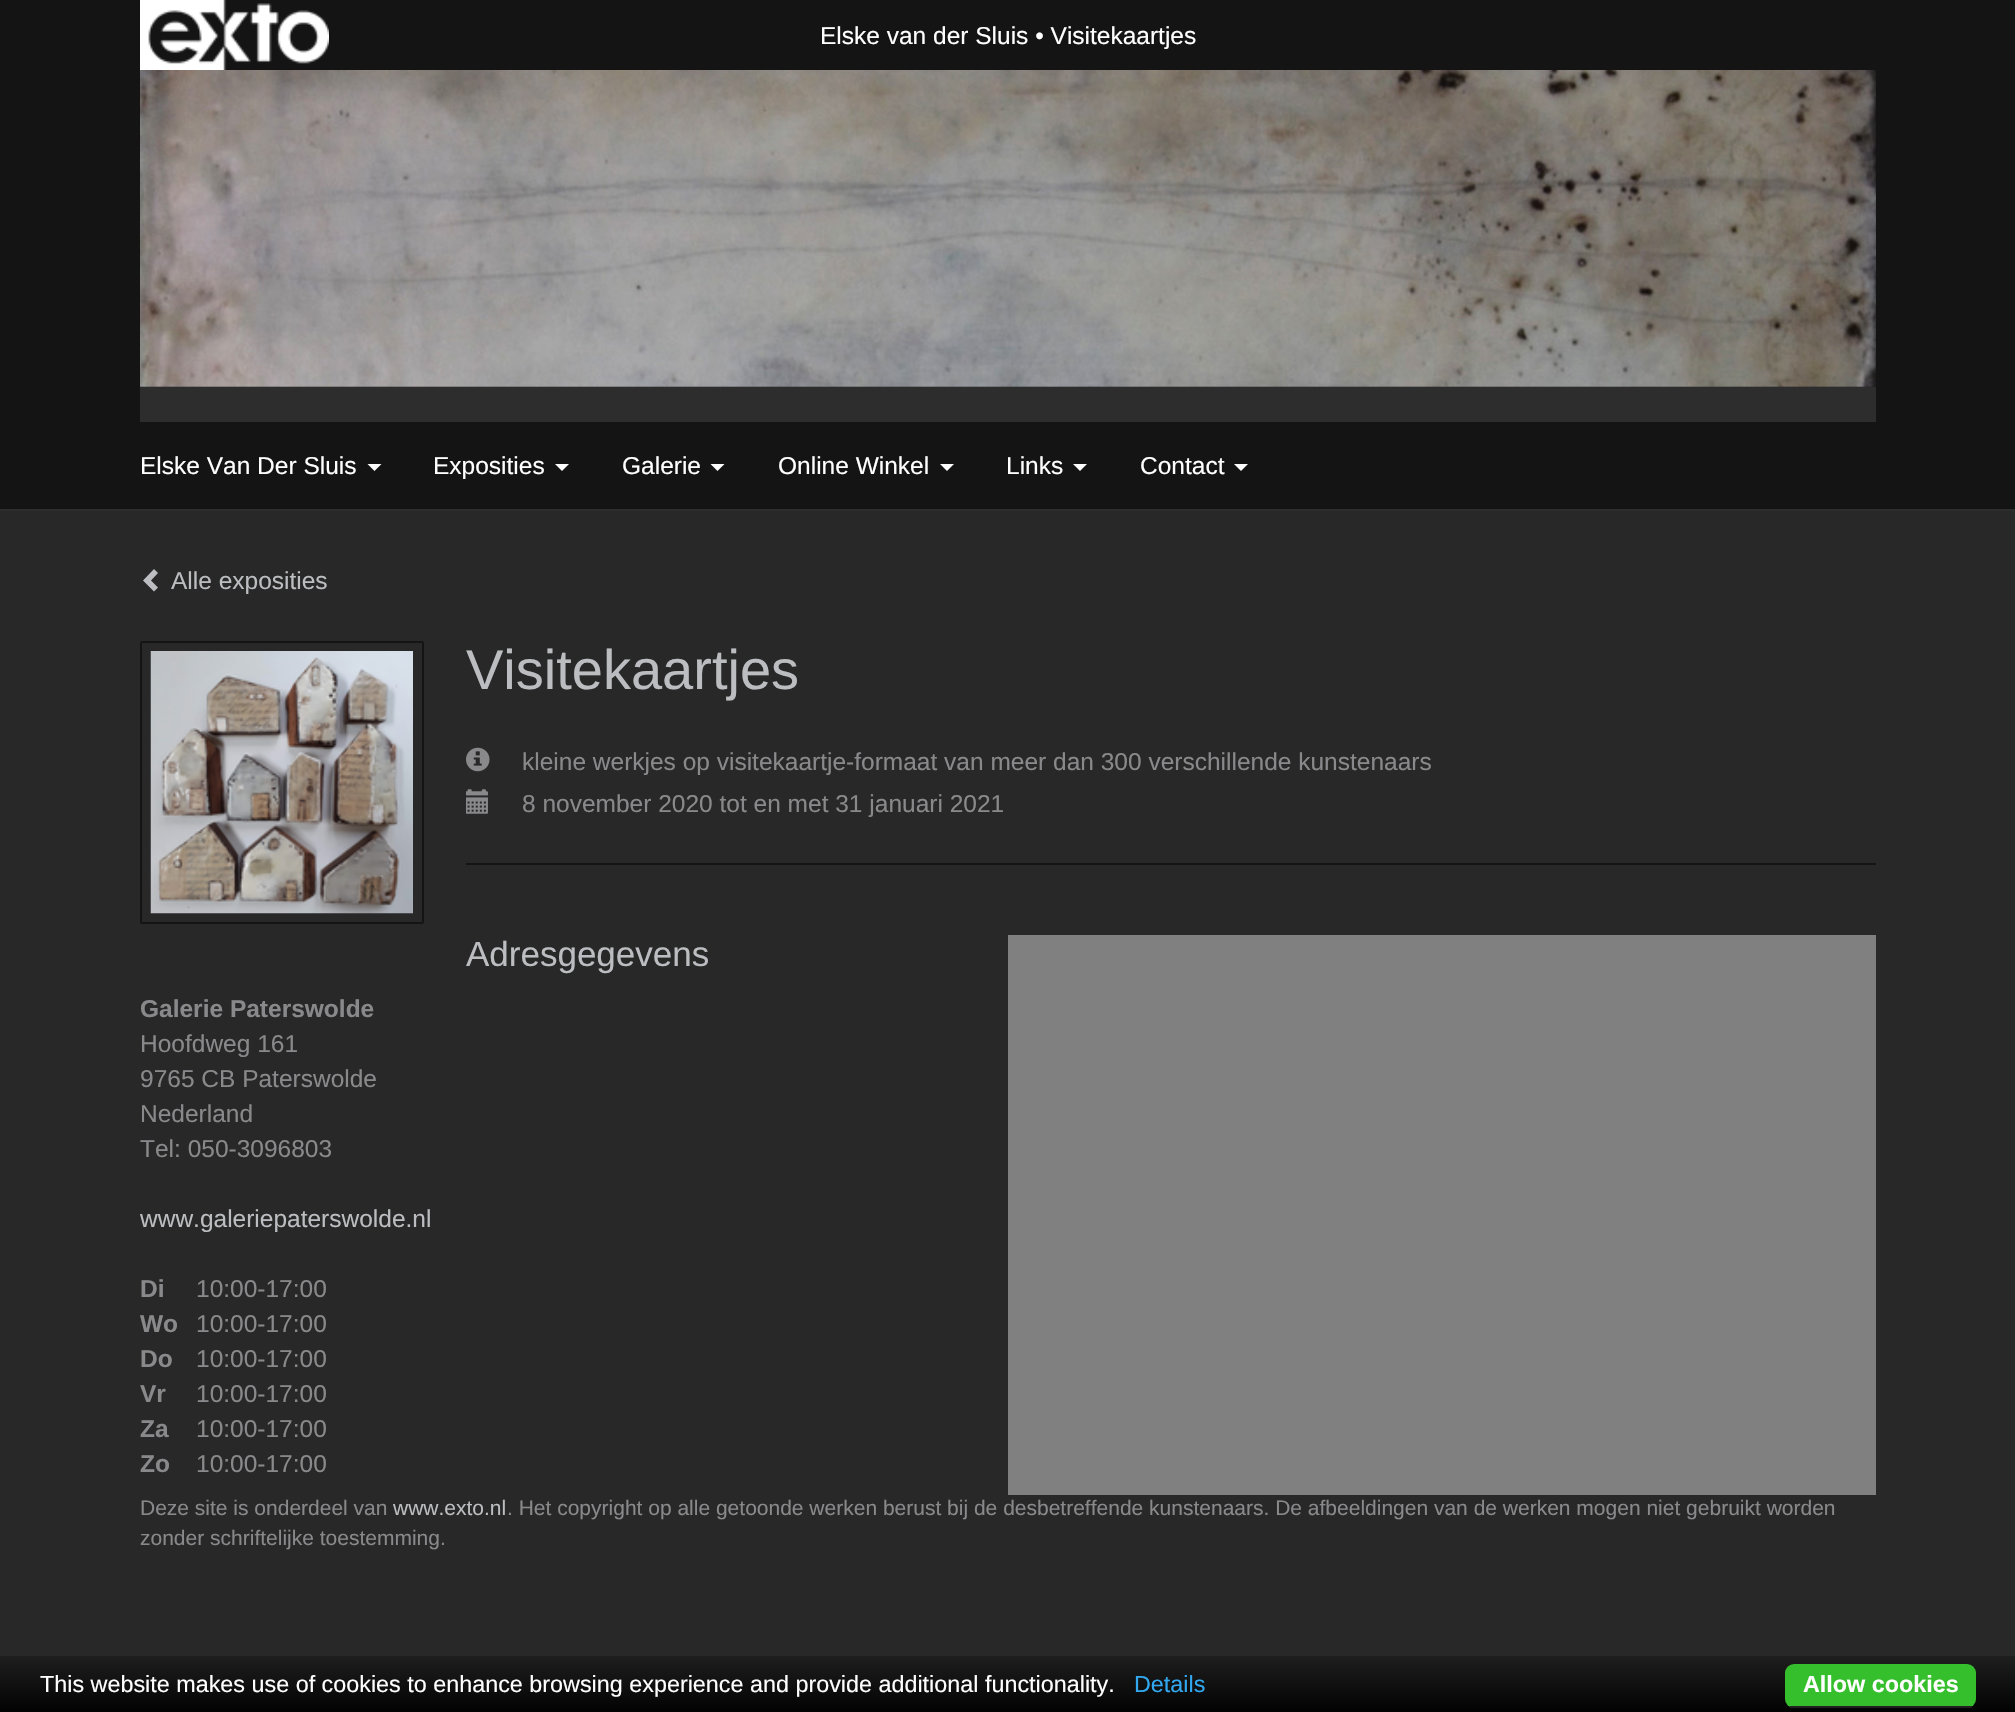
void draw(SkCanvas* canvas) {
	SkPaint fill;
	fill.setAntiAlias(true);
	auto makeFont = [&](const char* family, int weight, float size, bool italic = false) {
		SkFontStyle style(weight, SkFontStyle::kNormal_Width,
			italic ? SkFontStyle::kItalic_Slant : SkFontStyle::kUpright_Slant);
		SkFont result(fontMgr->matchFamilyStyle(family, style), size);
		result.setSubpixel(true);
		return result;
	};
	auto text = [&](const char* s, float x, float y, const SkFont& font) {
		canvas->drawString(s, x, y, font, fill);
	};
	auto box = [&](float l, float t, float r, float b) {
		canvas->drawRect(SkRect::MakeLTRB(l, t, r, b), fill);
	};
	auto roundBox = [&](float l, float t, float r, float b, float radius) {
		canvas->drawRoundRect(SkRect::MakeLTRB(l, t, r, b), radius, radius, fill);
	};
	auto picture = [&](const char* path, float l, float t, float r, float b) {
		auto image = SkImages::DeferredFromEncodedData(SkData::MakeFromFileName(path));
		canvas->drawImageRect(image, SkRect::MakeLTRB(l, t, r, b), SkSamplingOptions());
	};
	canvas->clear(0xFF282828);
	fill.setColor(0xFF141414);
	box(0, 0, 2015, 509);
	picture("image0.png", 140, 0, 329, 70);
	picture("image1.png", 140, 70, 1876, 387);
	fill.setColor(0xFF2D2D2D);
	box(140, 387, 1876, 422);
	box(0, 509, 2015, 511);
	fill.setColor(0xFFFFFFFF);
	canvas->drawPath(SkPathBuilder().moveTo(367.5f, 464).lineTo(381.5f, 464).lineTo(374.5f, 471).close().detach(), fill);
	canvas->drawPath(SkPathBuilder().moveTo(555, 464).lineTo(569, 464).lineTo(562, 471).close().detach(), fill);
	canvas->drawPath(SkPathBuilder().moveTo(710.5f, 464).lineTo(724.5f, 464).lineTo(717.5f, 471).close().detach(), fill);
	canvas->drawPath(SkPathBuilder().moveTo(940, 464).lineTo(954, 464).lineTo(947, 471).close().detach(), fill);
	canvas->drawPath(SkPathBuilder().moveTo(1073, 464).lineTo(1087, 464).lineTo(1080, 471).close().detach(), fill);
	canvas->drawPath(SkPathBuilder().moveTo(1234, 464).lineTo(1248, 464).lineTo(1241, 471).close().detach(), fill);
	fill.setColor(0xFFBCBDC0);
	canvas->drawPath(SkPathBuilder().moveTo(158, 573).lineTo(151, 580.5f).lineTo(158, 587.5f).lineTo(154, 591.5f).lineTo(143, 580.5f).lineTo(154, 569).close().detach(), fill);
	fill.setStyle(SkPaint::kStroke_Style);
	fill.setStrokeWidth(2);
	fill.setColor(0xFF141414);
	canvas->drawRoundRect(SkRect::MakeLTRB(141, 642, 423, 923), 1, 1, fill);
	picture("image2.png", 150, 651, 413, 914);
	picture("image3.png", 466, 747, 490, 772);
	picture("image4.png", 466, 789, 488, 814);
	fill.setStyle(SkPaint::kFill_Style);
	box(466, 863, 1876, 865);
	fill.setColor(0xFF808080);
	box(1008, 935, 1876, 1495);
	{
		const SkColor colors[] = {0xFF1F1F1F, 0xFF020202};
		const float stops[] = {0, 1};
		const SkPoint ends[] = {{1008, 1655}, {1008, 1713}};
		fill.setShader(SkGradientShader::MakeLinear(ends, colors, stops, 2, SkTileMode::kClamp));
		fill.setAlpha(255);
	}
	box(0, 1656, 2015, 1712);
	fill.setShader(nullptr);
	fill.setColor(0xFF36BF2D);
	roundBox(1785, 1664, 1976, 1708, 9);
	fill.setColor(0xFF222222);
	box(1790, 1706, 1972, 1708);
	auto font1 = makeFont("Liberation Sans", 400, 24.5f);
	fill.setColor(0xFFFFFFFF);
	text("Elske van der Sluis • Visitekaartjes", 820, 44, font1);
	text("Elske Van Der Sluis", 140, 474, font1);
	text("Exposities", 433, 474, font1);
	text("Galerie", 622, 474, font1);
	text("Online Winkel", 778, 474, font1);
	text("Links", 1006, 474, font1);
	text("Contact", 1140, 474, font1);
	fill.setColor(0xFFBCBDC0);
	text("Alle exposities", 171, 589, font1);
	auto font2 = makeFont("Liberation Sans", 400, 56);
	text("Visitekaartjes", 466, 689, font2);
	fill.setColor(0xFF89898B);
	text("kleine werkjes op visitekaartje-formaat van meer dan 300 verschillende kunstenaars", 522, 770, font1);
	text("8 november 2020 tot en met 31 januari 2021", 522, 812, font1);
	auto font3 = makeFont("Liberation Sans", 400, 35);
	fill.setColor(0xFFBCBDC0);
	text("Adresgegevens", 466, 966, font3);
	auto font4 = makeFont("Liberation Sans", 700, 24.5f);
	fill.setColor(0xFF89898B);
	text("Galerie Paterswolde", 140, 1017, font4);
	text("Hoofdweg 161", 140, 1052, font1);
	text("9765 CB Paterswolde", 140, 1087, font1);
	text("Nederland", 140, 1122, font1);
	text("Tel: 050-3096803", 140, 1157, font1);
	fill.setColor(0xFFBCBDC0);
	text("www.galeriepaterswolde.nl", 140, 1227, font1);
	fill.setColor(0xFF89898B);
	text("Di", 140, 1297, font4);
	text("10:00-17:00", 196, 1297, font1);
	text("Wo", 140, 1332, font4);
	text("10:00-17:00", 196, 1332, font1);
	text("Do", 140, 1367, font4);
	text("10:00-17:00", 196, 1367, font1);
	text("Vr", 140, 1402, font4);
	text("10:00-17:00", 196, 1402, font1);
	text("Za", 140, 1437, font4);
	text("10:00-17:00", 196, 1437, font1);
	text("Zo", 140, 1472, font4);
	text("10:00-17:00", 196, 1472, font1);
	auto font5 = makeFont("Liberation Sans", 400, 21);
	text("Deze site is onderdeel van", 140, 1515, font5);
	fill.setColor(0xFFBCBDC0);
	text("www.exto.nl", 393, 1515, font5);
	fill.setColor(0xFF89898B);
	text(". Het copyright op alle getoonde werken berust bij de desbetreffende kunstenaars. De afbeeldingen van de werken mogen niet gebruikt worden", 507, 1515, font5);
	text("zonder schriftelijke toestemming.", 140, 1545, font5);
	auto font6 = makeFont("Liberation Sans", 400, 23.35f);
	fill.setColor(0xFFFFFFFF);
	text("This website makes use of cookies to enhance browsing experience and provide additional functionality.", 40, 1692, font6);
	fill.setColor(0xFF31A8F0);
	text("Details", 1134, 1692, font6);
	auto font7 = makeFont("Liberation Sans", 700, 23.35f);
	fill.setColor(0xFFFFFFFF);
	text("Allow cookies", 1803, 1692, font7);
}
